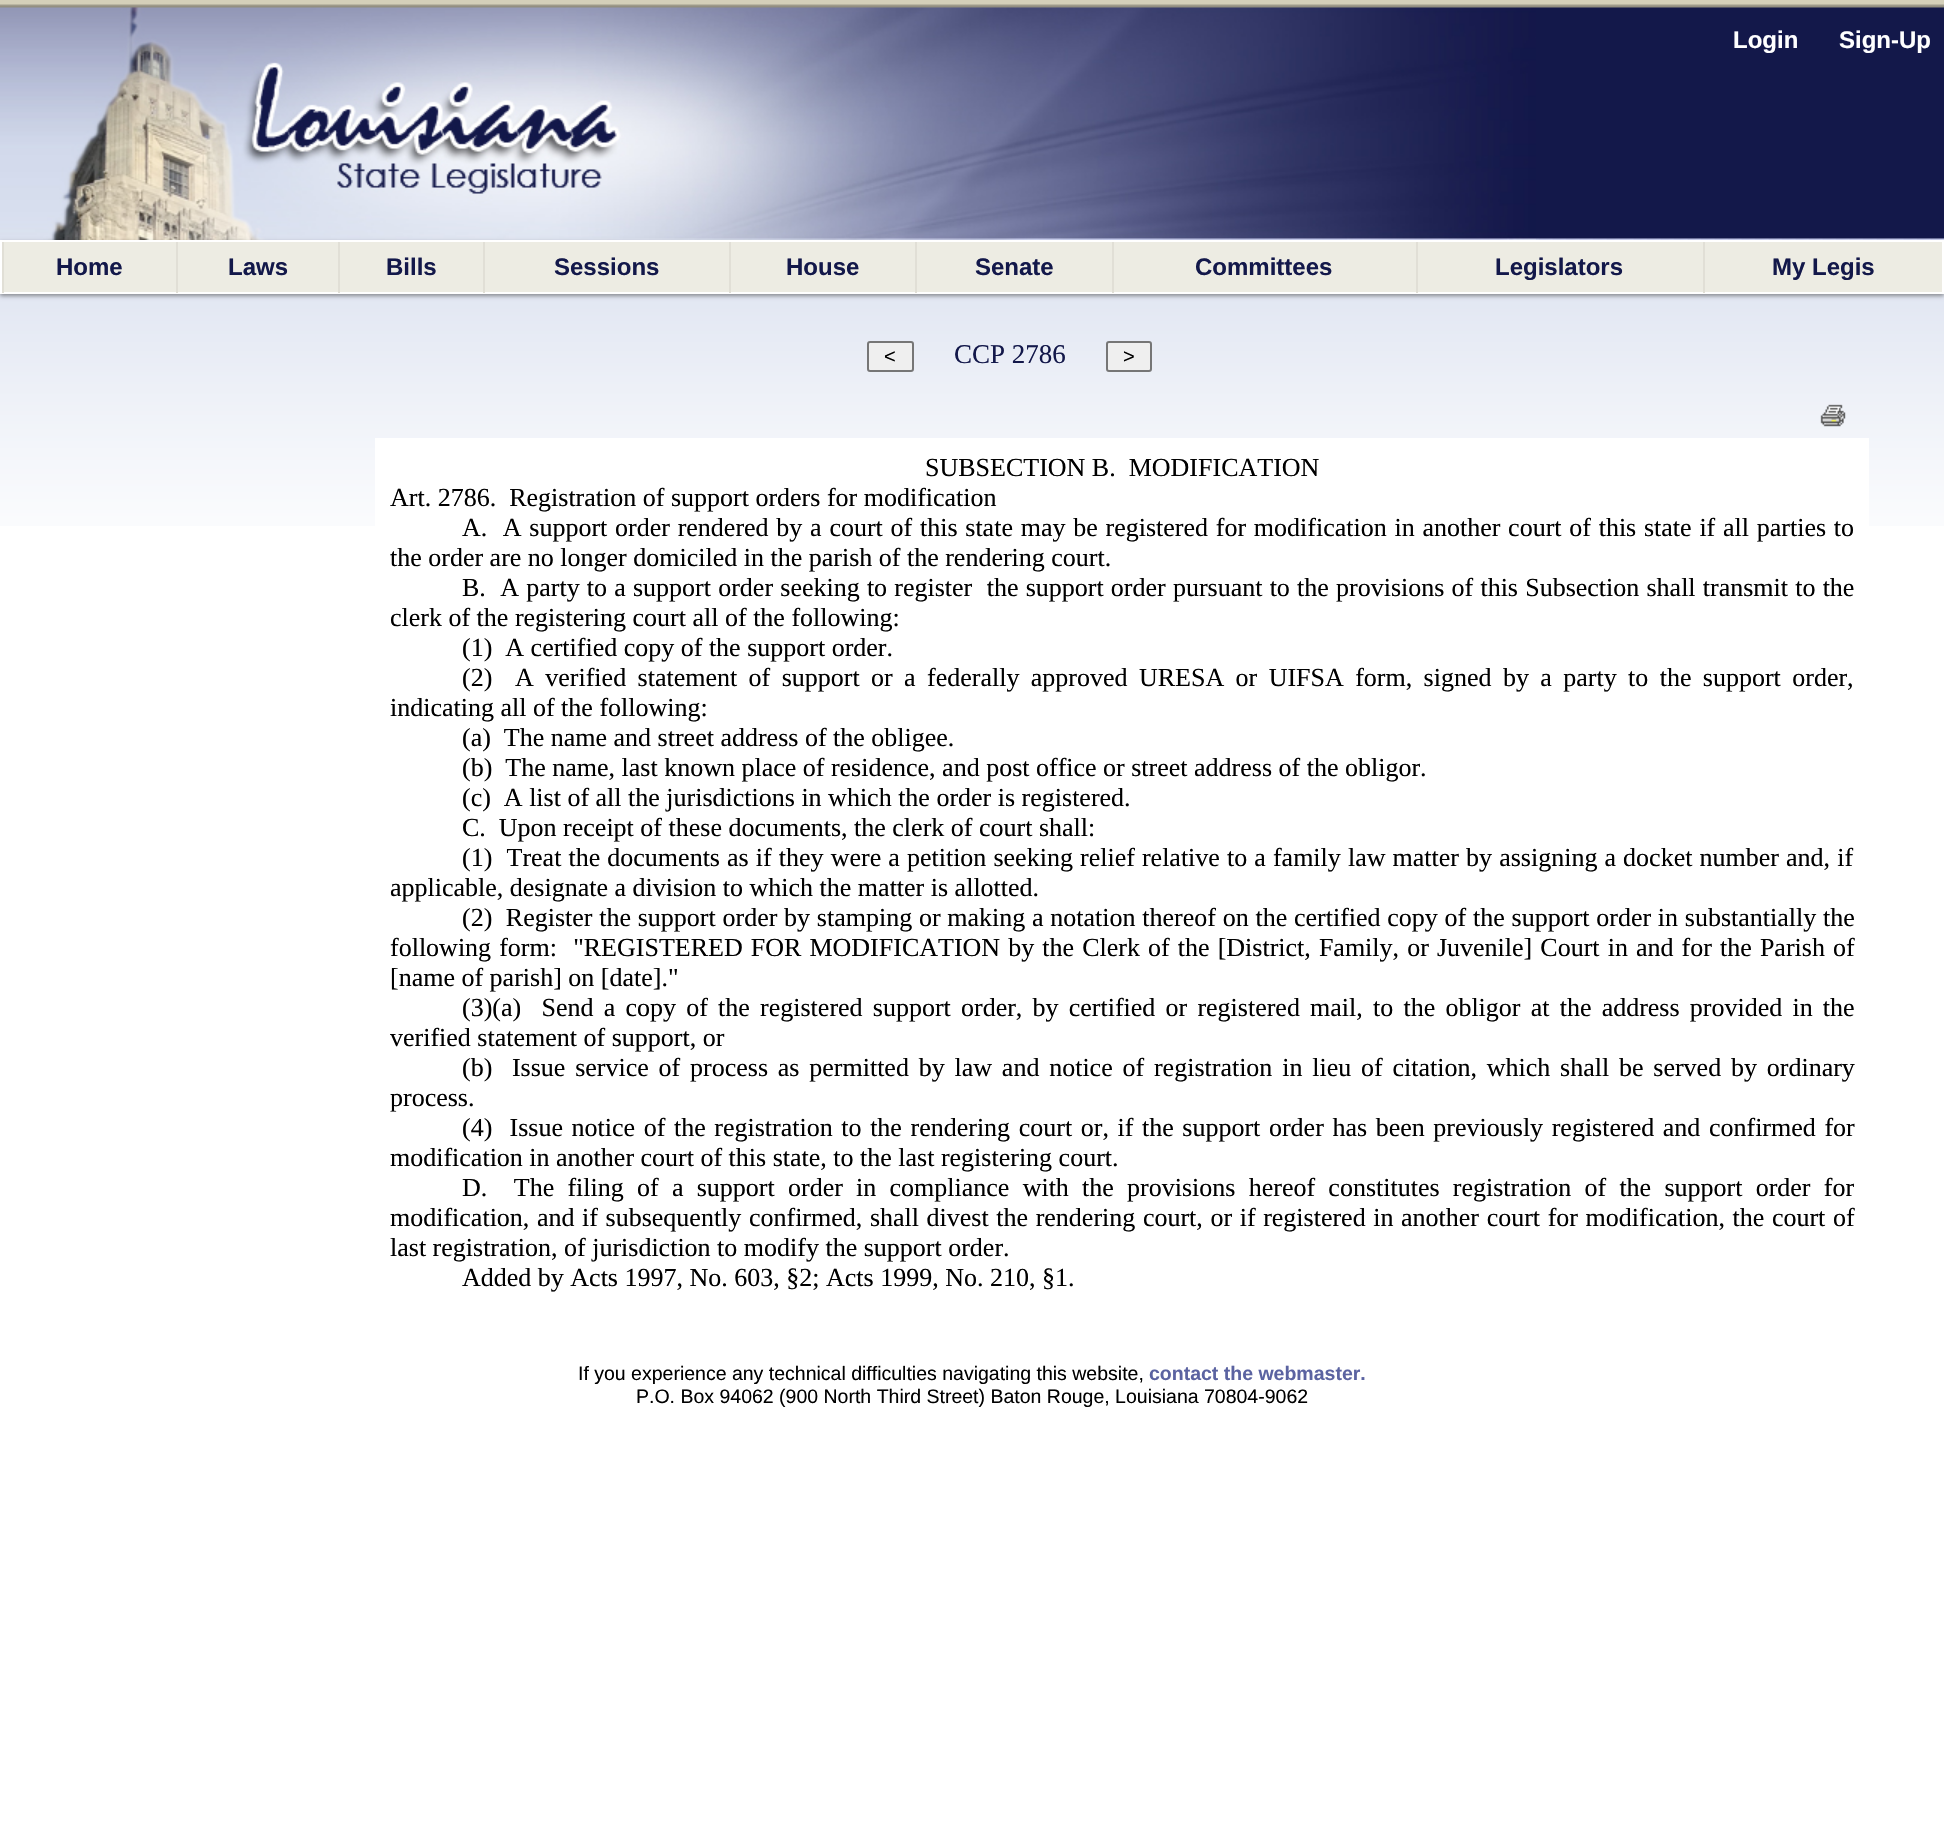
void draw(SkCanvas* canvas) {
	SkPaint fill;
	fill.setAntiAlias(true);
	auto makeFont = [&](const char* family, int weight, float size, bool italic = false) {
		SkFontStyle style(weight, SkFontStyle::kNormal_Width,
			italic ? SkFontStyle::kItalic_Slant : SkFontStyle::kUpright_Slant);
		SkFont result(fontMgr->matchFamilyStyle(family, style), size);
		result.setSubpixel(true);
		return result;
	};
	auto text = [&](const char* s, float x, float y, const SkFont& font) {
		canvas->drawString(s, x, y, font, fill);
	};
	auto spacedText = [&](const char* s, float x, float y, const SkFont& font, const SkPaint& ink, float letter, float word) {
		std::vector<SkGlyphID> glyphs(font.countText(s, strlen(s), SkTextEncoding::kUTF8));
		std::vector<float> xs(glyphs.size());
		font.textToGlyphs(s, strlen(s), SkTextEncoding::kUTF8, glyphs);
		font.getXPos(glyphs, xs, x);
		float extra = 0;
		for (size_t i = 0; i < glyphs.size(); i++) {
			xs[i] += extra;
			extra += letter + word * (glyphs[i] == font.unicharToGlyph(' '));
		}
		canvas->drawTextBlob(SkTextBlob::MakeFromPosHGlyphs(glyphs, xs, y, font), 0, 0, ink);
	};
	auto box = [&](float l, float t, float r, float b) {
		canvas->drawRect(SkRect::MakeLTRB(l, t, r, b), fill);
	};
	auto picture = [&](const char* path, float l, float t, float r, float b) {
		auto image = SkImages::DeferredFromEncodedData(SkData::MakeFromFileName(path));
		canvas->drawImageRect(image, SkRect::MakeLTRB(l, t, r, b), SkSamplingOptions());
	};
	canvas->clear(0xFFFFFFFF);
	picture("image0.png", 0, 0, 1944, 526);
	picture("image1.png", 0, 7, 1536, 240);
	fill.setColor(0x66000000);
	fill.setMaskFilter(SkMaskFilter::MakeBlur(kNormal_SkBlurStyle, 2));
	canvas->drawRect(SkRect::MakeLTRB(0, 242, 1944, 296), fill);
	fill.setMaskFilter(nullptr);
	fill.setColor(0xFFEDECE3);
	box(4, 242, 1942, 292);
	fill.setStyle(SkPaint::kStroke_Style);
	fill.setStrokeWidth(2);
	fill.setColor(0xFFFFFFFF);
	canvas->drawRect(SkRect::MakeLTRB(1, 241, 1943, 293), fill);
	fill.setStyle(SkPaint::kFill_Style);
	fill.setColor(0xFFE1DFD6);
	box(2, 242, 4, 293);
	box(176, 242, 178, 293);
	box(338, 242, 340, 293);
	box(483, 242, 485, 293);
	box(729, 242, 731, 293);
	box(915, 242, 917, 293);
	box(1112, 242, 1114, 293);
	box(1416, 242, 1418, 293);
	box(1703, 242, 1705, 293);
	fill.setColor(0xFFEFEFEF);
	canvas->drawRoundRect(SkRect::MakeLTRB(868, 342, 913, 371), 2, 2, fill);
	fill.setStyle(SkPaint::kStroke_Style);
	fill.setColor(0xFF767676);
	canvas->drawRoundRect(SkRect::MakeLTRB(868, 342, 913, 371), 2, 2, fill);
	fill.setStyle(SkPaint::kFill_Style);
	fill.setColor(0xFFEFEFEF);
	canvas->drawRoundRect(SkRect::MakeLTRB(1107, 342, 1151, 371), 2, 2, fill);
	fill.setStyle(SkPaint::kStroke_Style);
	fill.setColor(0xFF767676);
	canvas->drawRoundRect(SkRect::MakeLTRB(1107, 342, 1151, 371), 2, 2, fill);
	picture("image2.png", 1820, 404, 1846, 427);
	fill.setStyle(SkPaint::kFill_Style);
	fill.setColor(0xFFFFFFFF);
	box(375, 438, 1869, 526);
	auto font1 = makeFont("Liberation Sans", 700, 24);
	text("Login", 1733, 48, font1);
	text("Sign-Up", 1839, 48, font1);
	fill.setColor(0xFF13184A);
	text("Home", 56, 275, font1);
	text("Laws", 228, 275, font1);
	text("Bills", 386, 275, font1);
	text("Sessions", 554, 275, font1);
	text("House", 786, 275, font1);
	text("Senate", 975, 275, font1);
	text("Committees", 1195, 275, font1);
	text("Legislators", 1495, 275, font1);
	text("My Legis", 1772, 275, font1);
	auto font2 = makeFont("Liberation Sans", 400, 20);
	fill.setColor(0xFF000000);
	text("<", 884, 363, font2);
	auto font3 = makeFont("Liberation Serif", 400, 27);
	fill.setColor(0xFF13184A);
	text("CCP 2786", 954, 363, font3);
	fill.setColor(0xFF000000);
	text(">", 1123, 363, font2);
	auto font4 = makeFont("Liberation Serif", 400, 26);
	text("SUBSECTION B.  MODIFICATION", 925, 476, font4);
	text("Art. 2786.  Registration of support orders for modification", 390, 506, font4);
	spacedText("A.  A support order rendered by a court of this state may be registered for modification in another court of this state if all parties to", 462, 536, font4, fill, 0, 1.25f);
	text("the order are no longer domiciled in the parish of the rendering court.", 390, 566, font4);
	spacedText("B.  A party to a support order seeking to register  the support order pursuant to the provisions of this Subsection shall transmit to the", 462, 596, font4, fill, 0, 0.7f);
	text("clerk of the registering court all of the following:", 390, 626, font4);
	text("(1)  A certified copy of the support order.", 462, 656, font4);
	spacedText("(2)  A verified statement of support or a federally approved URESA or UIFSA form, signed by a party to the support order,", 462, 686, font4, fill, 0, 4.9f);
	text("indicating all of the following:", 390, 716, font4);
	text("(a)  The name and street address of the obligee.", 462, 746, font4);
	text("(b)  The name, last known place of residence, and post office or street address of the obligor.", 462, 776, font4);
	text("(c)  A list of all the jurisdictions in which the order is registered.", 462, 806, font4);
	text("C.  Upon receipt of these documents, the clerk of court shall:", 462, 836, font4);
	spacedText("(1)  Treat the documents as if they were a petition seeking relief relative to a family law matter by assigning a docket number and, if", 462, 866, font4, fill, 0, 0.6f);
	text("applicable, designate a division to which the matter is allotted.", 390, 896, font4);
	spacedText("(2)  Register the support order by stamping or making a notation thereof on the certified copy of the support order in substantially the", 462, 926, font4, fill, 0, 0.25f);
	spacedText("following form:  \"REGISTERED FOR MODIFICATION by the Clerk of the [District, Family, or Juvenile] Court in and for the Parish of", 390, 956, font4, fill, 0, 1.6f);
	text("[name of parish] on [date].\"", 390, 986, font4);
	spacedText("(3)(a)  Send a copy of the registered support order, by certified or registered mail, to the obligor at the address provided in the", 462, 1016, font4, fill, 0, 3.7f);
	text("verified statement of support, or", 390, 1046, font4);
	spacedText("(b)  Issue service of process as permitted by law and notice of registration in lieu of citation, which shall be served by ordinary", 462, 1076, font4, fill, 0, 3.3f);
	text("process.", 390, 1106, font4);
	spacedText("(4)  Issue notice of the registration to the rendering court or, if the support order has been previously registered and confirmed for", 462, 1136, font4, fill, 0, 2.1f);
	text("modification in another court of this state, to the last registering court.", 390, 1166, font4);
	spacedText("D.  The filing of a support order in compliance with the provisions hereof constitutes registration of the support order for", 462, 1196, font4, fill, 0, 6.75f);
	spacedText("modification, and if subsequently confirmed, shall divest the rendering court, or if registered in another court for modification, the court of", 390, 1226, font4, fill, 0, 1.1f);
	text("last registration, of jurisdiction to modify the support order.", 390, 1256, font4);
	text("Added by Acts 1997, No. 603, §2; Acts 1999, No. 210, §1.", 462, 1286, font4);
	auto font5 = makeFont("Liberation Sans", 400, 19.5f);
	text("If you experience any technical difficulties navigating this website,", 578, 1380, font5);
	auto font6 = makeFont("Liberation Sans", 700, 19.5f);
	fill.setColor(0xFF5B63A1);
	text("contact the webmaster.", 1149, 1380, font6);
	fill.setColor(0xFF000000);
	text("P.O. Box 94062 (900 North Third Street) Baton Rouge, Louisiana 70804-9062", 636, 1403, font5);
}
